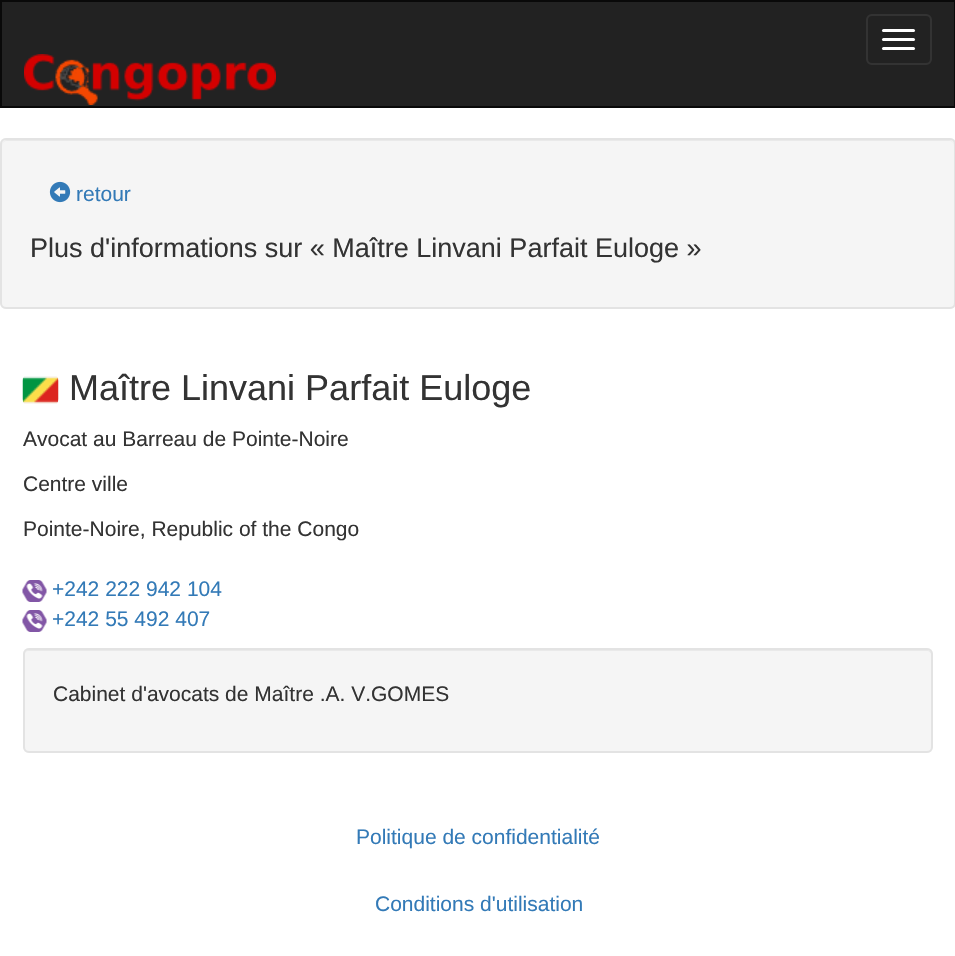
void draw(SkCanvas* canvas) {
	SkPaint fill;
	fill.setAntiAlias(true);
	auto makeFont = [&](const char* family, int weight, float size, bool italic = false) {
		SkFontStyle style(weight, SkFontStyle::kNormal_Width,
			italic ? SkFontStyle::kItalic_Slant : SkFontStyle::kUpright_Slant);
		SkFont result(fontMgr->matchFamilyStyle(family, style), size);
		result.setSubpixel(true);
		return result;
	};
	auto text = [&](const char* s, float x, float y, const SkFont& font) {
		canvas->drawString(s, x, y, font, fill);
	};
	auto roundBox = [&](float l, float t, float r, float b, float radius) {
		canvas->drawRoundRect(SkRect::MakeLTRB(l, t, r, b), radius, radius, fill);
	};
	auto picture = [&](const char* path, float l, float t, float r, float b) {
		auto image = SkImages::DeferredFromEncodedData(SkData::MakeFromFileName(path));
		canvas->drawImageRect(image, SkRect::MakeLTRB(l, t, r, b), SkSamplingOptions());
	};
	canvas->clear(0xFFFFFFFF);
	fill.setColor(0xFF222222);
	canvas->drawRect(SkRect::MakeLTRB(1, 1, 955, 107), fill);
	fill.setStyle(SkPaint::kStroke_Style);
	fill.setStrokeWidth(2);
	fill.setColor(0xFF090909);
	canvas->drawRect(SkRect::MakeLTRB(1, 1, 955, 107), fill);
	fill.setColor(0xFF333333);
	canvas->drawRoundRect(SkRect::MakeLTRB(867, 15, 931, 64), 5, 5, fill);
	fill.setStyle(SkPaint::kFill_Style);
	fill.setColor(0xFFFFFFFF);
	roundBox(882, 29, 915, 32, 1.5f);
	roundBox(882, 38, 915, 41, 1.5f);
	roundBox(882, 47, 915, 50, 1.5f);
	picture("image0.png", 24, 54, 276, 105);
	fill.setColor(0xFFF5F5F5);
	roundBox(0, 138, 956, 309, 6);
	fill.setColor(0xFFE9E9E9);
	canvas->drawPath(SkPathBuilder().moveTo(6, 141).lineTo(950, 141).cubicTo(952, 141, 954, 143, 954, 146).cubicTo(954, 143, 952, 140, 949, 140).lineTo(7, 140).cubicTo(4, 140, 2, 143, 2, 146).cubicTo(2, 143, 4, 141, 6, 141).close().detach(), fill);
	fill.setStyle(SkPaint::kStroke_Style);
	fill.setColor(0xFFE3E3E3);
	canvas->drawRoundRect(SkRect::MakeLTRB(1, 139, 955, 308), 5, 5, fill);
	picture("image1.png", 49, 181, 71, 203);
	picture("image2.png", 22, 376, 59, 404);
	picture("image3.png", 22, 580, 47, 602);
	picture("image3.png", 22, 610, 47, 632);
	fill.setStyle(SkPaint::kFill_Style);
	fill.setColor(0xFFF5F5F5);
	roundBox(23, 648, 933, 753, 6);
	fill.setColor(0xFFE9E9E9);
	canvas->drawPath(SkPathBuilder().moveTo(28, 651).lineTo(927, 651).cubicTo(929, 651, 932, 653, 932, 656).cubicTo(932, 653, 930, 650, 927, 650).lineTo(29, 650).cubicTo(26, 650, 24, 653, 24, 656).cubicTo(24, 653, 26, 651, 28, 651).close().detach(), fill);
	fill.setStyle(SkPaint::kStroke_Style);
	fill.setColor(0xFFE3E3E3);
	canvas->drawRoundRect(SkRect::MakeLTRB(24, 649, 932, 752), 5, 5, fill);
	auto font1 = makeFont("Liberation Sans", 400, 21);
	fill.setStyle(SkPaint::kFill_Style);
	fill.setColor(0xFF337AB7);
	text("retour", 76, 201, font1);
	auto font2 = makeFont("Liberation Sans", 400, 27);
	fill.setColor(0xFF333333);
	text("Plus d'informations sur « Maître Linvani Parfait Euloge »", 30, 257, font2);
	auto font3 = makeFont("Liberation Sans", 400, 36);
	text("Maître Linvani Parfait Euloge", 69, 400, font3);
	text("Avocat au Barreau de Pointe-Noire", 23, 446, font1);
	text("Centre ville", 23, 491, font1);
	text("Pointe-Noire, Republic of the Congo", 23, 536, font1);
	fill.setColor(0xFF337AB7);
	text("+242 222 942 104", 52, 596, font1);
	text("+242 55 492 407", 52, 626, font1);
	fill.setColor(0xFF333333);
	text("Cabinet d'avocats de Maître .A. V.GOMES", 53, 701, font1);
	fill.setColor(0xFF337AB7);
	text("Politique de confidentialité", 356, 844, font1);
	text("Conditions d'utilisation", 375, 911, font1);
}
